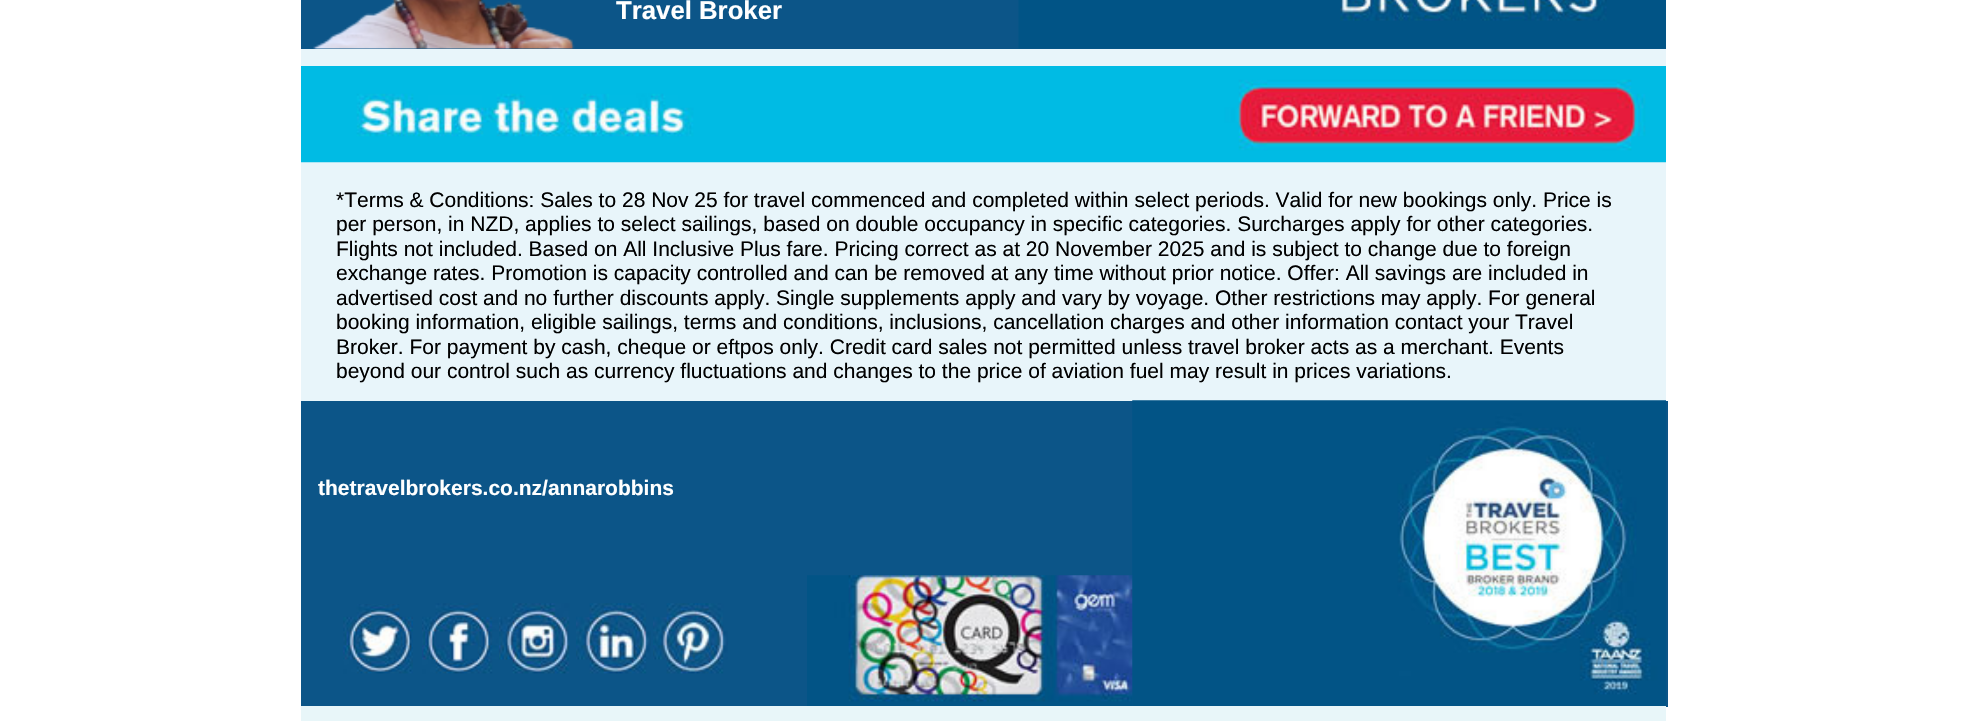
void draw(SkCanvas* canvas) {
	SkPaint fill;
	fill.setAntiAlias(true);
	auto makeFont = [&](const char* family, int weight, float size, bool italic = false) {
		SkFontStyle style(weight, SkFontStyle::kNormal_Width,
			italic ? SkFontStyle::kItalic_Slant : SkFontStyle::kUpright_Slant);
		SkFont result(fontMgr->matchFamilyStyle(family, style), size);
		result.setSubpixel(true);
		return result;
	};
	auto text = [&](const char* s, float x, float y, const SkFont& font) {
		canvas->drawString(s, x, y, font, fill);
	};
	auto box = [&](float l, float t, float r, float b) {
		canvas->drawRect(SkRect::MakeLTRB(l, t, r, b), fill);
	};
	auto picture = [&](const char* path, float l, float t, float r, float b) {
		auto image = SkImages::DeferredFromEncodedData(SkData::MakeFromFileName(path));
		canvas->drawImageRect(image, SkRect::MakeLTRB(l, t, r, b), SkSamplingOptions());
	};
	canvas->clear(0xFFFFFFFF);
	fill.setColor(0xFFE8F5FA);
	box(301, 49, 1666, 66);
	fill.setColor(0xFF0C5588);
	box(301, 0, 1666, 49);
	picture("image0.png", 313, 0, 575, 49);
	picture("image1.png", 1018, 0, 1666, 49);
	fill.setColor(0xFFE8F5FA);
	box(301, 162, 1666, 401);
	picture("image2.png", 301, 66, 1666, 163);
	fill.setColor(0xFF0C5588);
	box(301, 401, 1668, 707);
	picture("image3.png", 1132, 400, 1666, 706);
	picture("image4.png", 343, 604, 413, 674);
	picture("image5.png", 422, 603, 498, 674);
	picture("image6.png", 499, 603, 570, 674);
	picture("image7.png", 576, 603, 651, 674);
	picture("image8.png", 653, 603, 728, 674);
	picture("image9.png", 807, 575, 1133, 706);
	fill.setColor(0xFFE8F6F9);
	box(301, 706, 1666, 721);
	auto font1 = makeFont("Liberation Sans", 700, 25.75f);
	fill.setColor(0xFFFFFFFF);
	text("Travel Broker", 616, 19, font1);
	auto font2 = makeFont("Liberation Sans", 400, 21);
	fill.setColor(0xFF000000);
	text("*Terms & Conditions: Sales to 28 Nov 25 for travel commenced and completed within select periods. Valid for new bookings only. Price is", 336, 207, font2);
	text("per person, in NZD, applies to select sailings, based on double occupancy in specific categories. Surcharges apply for other categories.", 336, 231, font2);
	text("Flights not included. Based on All Inclusive Plus fare. Pricing correct as at 20 November 2025 and is subject to change due to foreign", 336, 256, font2);
	text("exchange rates. Promotion is capacity controlled and can be removed at any time without prior notice. Offer: All savings are included in", 336, 280, font2);
	text("advertised cost and no further discounts apply. Single supplements apply and vary by voyage. Other restrictions may apply. For general", 336, 305, font2);
	text("booking information, eligible sailings, terms and conditions, inclusions, cancellation charges and other information contact your Travel", 336, 329, font2);
	text("Broker. For payment by cash, cheque or eftpos only. Credit card sales not permitted unless travel broker acts as a merchant. Events", 336, 354, font2);
	text("beyond our control such as currency fluctuations and changes to the price of aviation fuel may result in prices variations.", 336, 378, font2);
	auto font3 = makeFont("Liberation Sans", 700, 21);
	fill.setColor(0xFFFFFFFF);
	text("thetravelbrokers.co.nz/annarobbins", 318, 495, font3);
}
